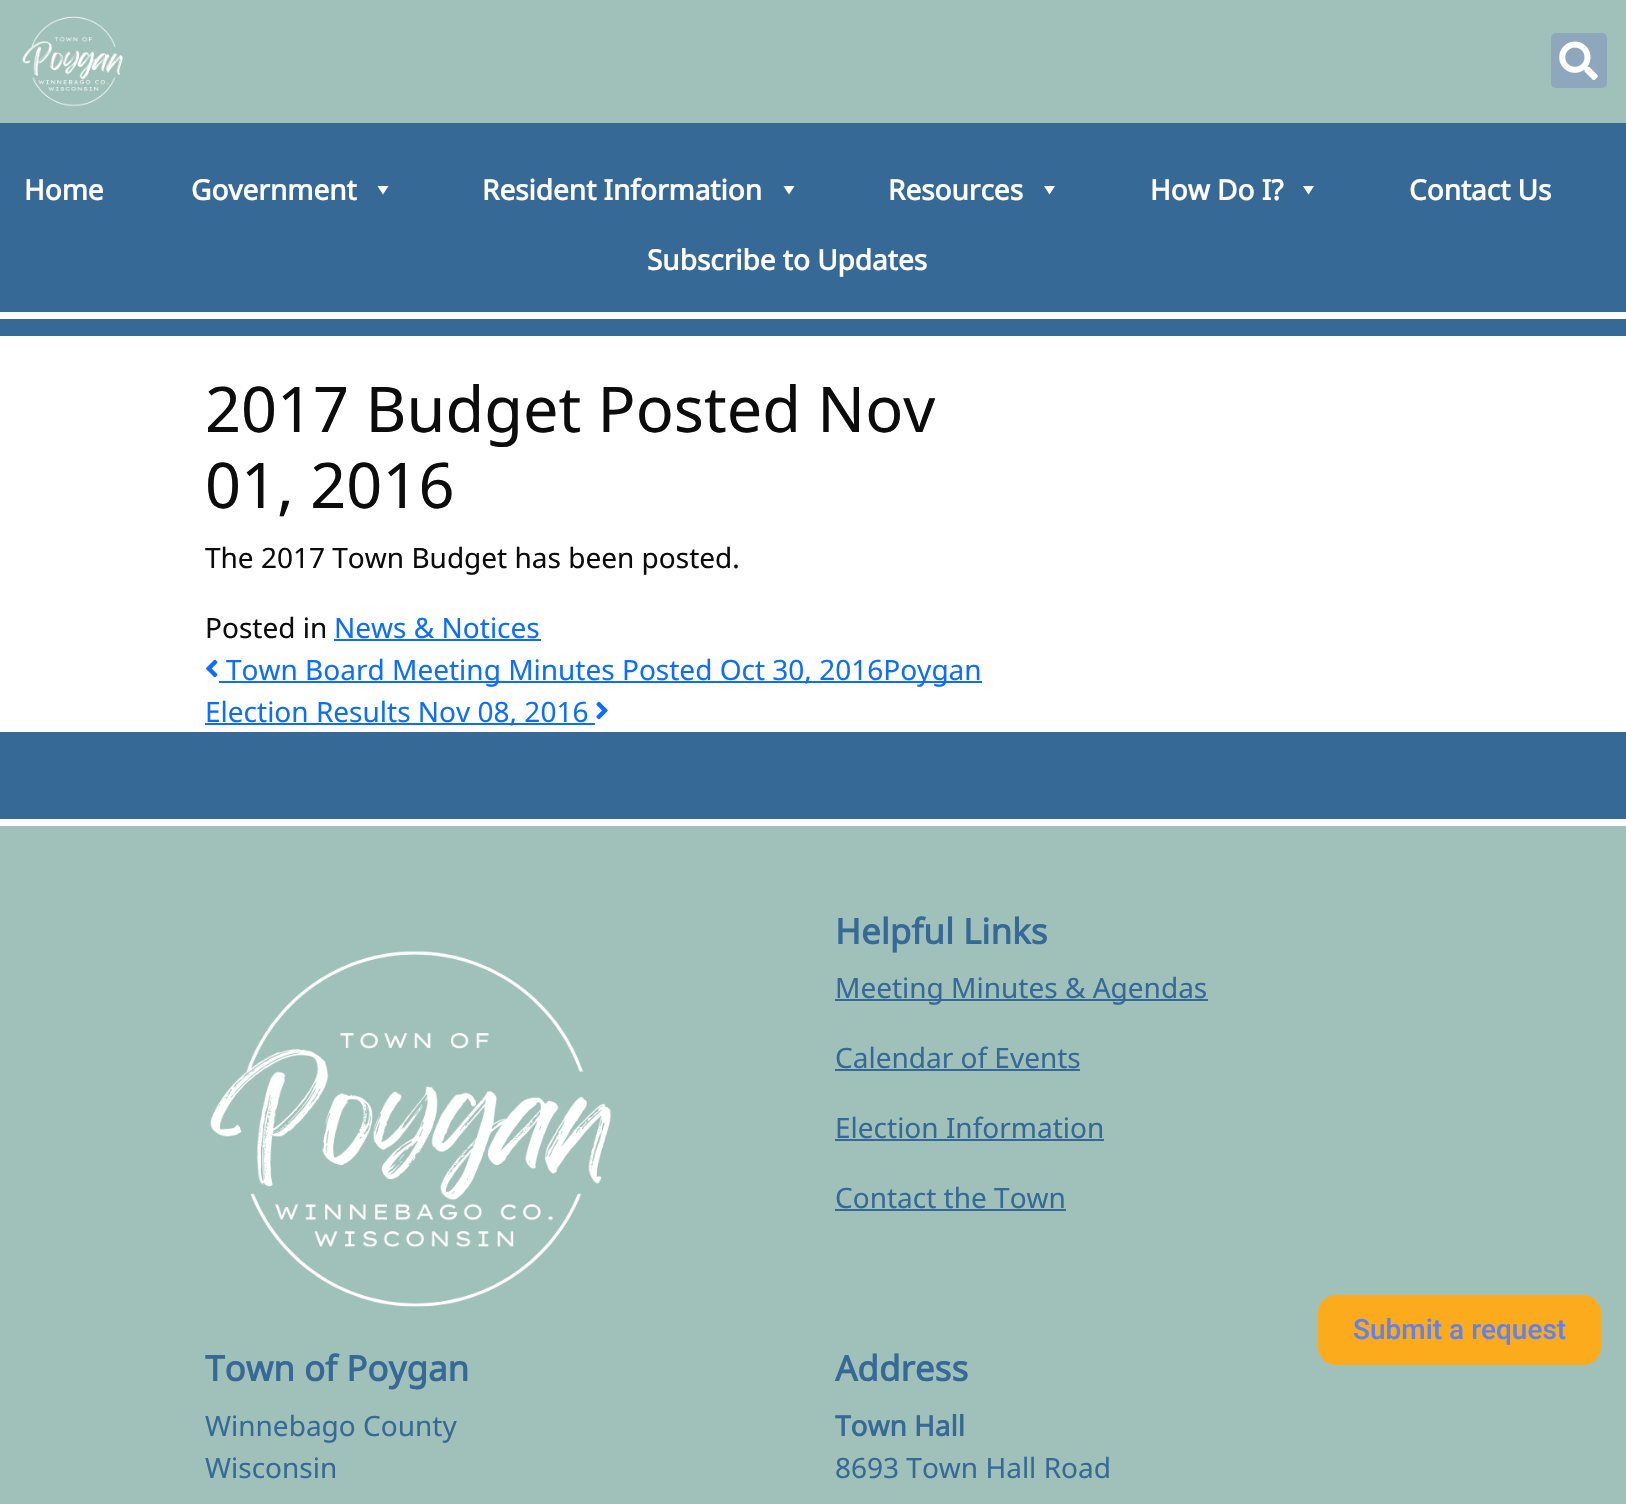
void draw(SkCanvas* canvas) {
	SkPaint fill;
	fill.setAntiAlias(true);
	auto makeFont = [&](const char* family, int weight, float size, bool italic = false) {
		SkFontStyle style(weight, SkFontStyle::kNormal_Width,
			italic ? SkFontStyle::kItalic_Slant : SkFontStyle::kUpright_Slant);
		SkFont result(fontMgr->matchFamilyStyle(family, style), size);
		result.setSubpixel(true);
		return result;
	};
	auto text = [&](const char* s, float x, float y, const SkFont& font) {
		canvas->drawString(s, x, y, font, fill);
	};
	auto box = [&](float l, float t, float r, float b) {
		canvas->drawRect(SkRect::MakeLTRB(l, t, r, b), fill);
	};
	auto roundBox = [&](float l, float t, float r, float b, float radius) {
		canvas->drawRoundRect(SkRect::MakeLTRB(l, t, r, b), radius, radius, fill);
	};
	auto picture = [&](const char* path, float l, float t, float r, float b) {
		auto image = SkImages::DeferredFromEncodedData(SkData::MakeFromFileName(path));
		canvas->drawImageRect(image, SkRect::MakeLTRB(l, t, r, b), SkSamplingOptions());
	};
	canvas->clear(0xFFFFFFFF);
	fill.setColor(0xFF376996);
	box(0, 123, 1626, 336);
	fill.setColor(0xFFA0C1B9);
	box(0, 0, 1626, 123);
	picture("image0.png", 22, 16, 123, 107);
	fill.setColor(0xFF8FA7BD);
	roundBox(1551, 33, 1607, 88, 5);
	picture("image1.png", 1559, 41, 1598, 80);
	fill.setColor(0xFFFFFFFF);
	canvas->drawPath(SkPathBuilder().moveTo(388.5f, 186).lineTo(383, 194.5f).lineTo(377.5f, 186).close().detach(), fill);
	canvas->drawPath(SkPathBuilder().moveTo(794.5f, 186).lineTo(789, 194.5f).lineTo(783.5f, 186).close().detach(), fill);
	canvas->drawPath(SkPathBuilder().moveTo(1055, 186).lineTo(1049.5f, 194.5f).lineTo(1044, 186).close().detach(), fill);
	canvas->drawPath(SkPathBuilder().moveTo(1314, 186).lineTo(1308.5f, 194.5f).lineTo(1303, 186).close().detach(), fill);
	box(0, 312, 1626, 319);
	fill.setColor(0xFF0D6EFD);
	box(334, 639, 541, 641);
	picture("image2.png", 206, 659, 218, 678);
	box(219, 681, 982, 683);
	box(205, 723, 595, 725);
	picture("image3.png", 596, 701, 608, 720);
	fill.setColor(0xFFA0C1B9);
	box(0, 826, 1626, 1504);
	fill.setColor(0xFF376996);
	box(0, 732, 1626, 819);
	picture("image4.png", 210, 951, 611, 1307);
	box(835, 999, 1208, 1001);
	box(835, 1069, 1080, 1071);
	box(835, 1139, 1104, 1141);
	box(835, 1209, 1066, 1211);
	fill.setColor(0xFFFCAB1C);
	roundBox(1318, 1295, 1601, 1365, 18);
	auto font1 = makeFont("Noto Sans", 700, 28);
	fill.setColor(0xFFFFFFFF);
	text("Home", 24, 200, font1);
	text("Government", 191, 200, font1);
	text("Resident Information", 482, 200, font1);
	text("Resources", 888, 200, font1);
	text("How Do I?", 1150, 200, font1);
	text("Contact Us", 1409, 200, font1);
	text("Subscribe to Updates", 647, 270, font1);
	auto font2 = makeFont("Noto Sans", 400, 63);
	fill.setColor(0xFF0C0C0C);
	text("2017 Budget Posted Nov", 205, 432, font2);
	text("01, 2016", 205, 508, font2);
	auto font3 = makeFont("Noto Sans", 400, 28);
	text("The 2017 Town Budget has been posted.", 205, 568, font3);
	text("Posted in", 205, 638, font3);
	fill.setColor(0xFF0D6EFD);
	text("News & Notices", 334, 638, font3);
	text("Town Board Meeting Minutes Posted Oct 30, 2016Poygan", 226, 680, font3);
	text("Election Results Nov 08, 2016", 205, 722, font3);
	auto font4 = makeFont("Noto Sans", 700, 35);
	fill.setColor(0xFF376996);
	text("Helpful Links", 835, 944, font4);
	text("Meeting Minutes & Agendas", 835, 998, font3);
	text("Calendar of Events", 835, 1068, font3);
	text("Election Information", 835, 1138, font3);
	text("Contact the Town", 835, 1208, font3);
	text("Town of Poygan", 205, 1381, font4);
	text("Winnebago County", 205, 1436, font3);
	text("Wisconsin", 205, 1478, font3);
	text("Address", 835, 1381, font4);
	text("Town Hall", 835, 1436, font1);
	text("8693 Town Hall Road", 835, 1478, font3);
	auto font5 = makeFont("Roboto", 500, 28);
	fill.setColor(0xFF5E81F4);
	text("Submit a request", 1353, 1339, font5);
}
